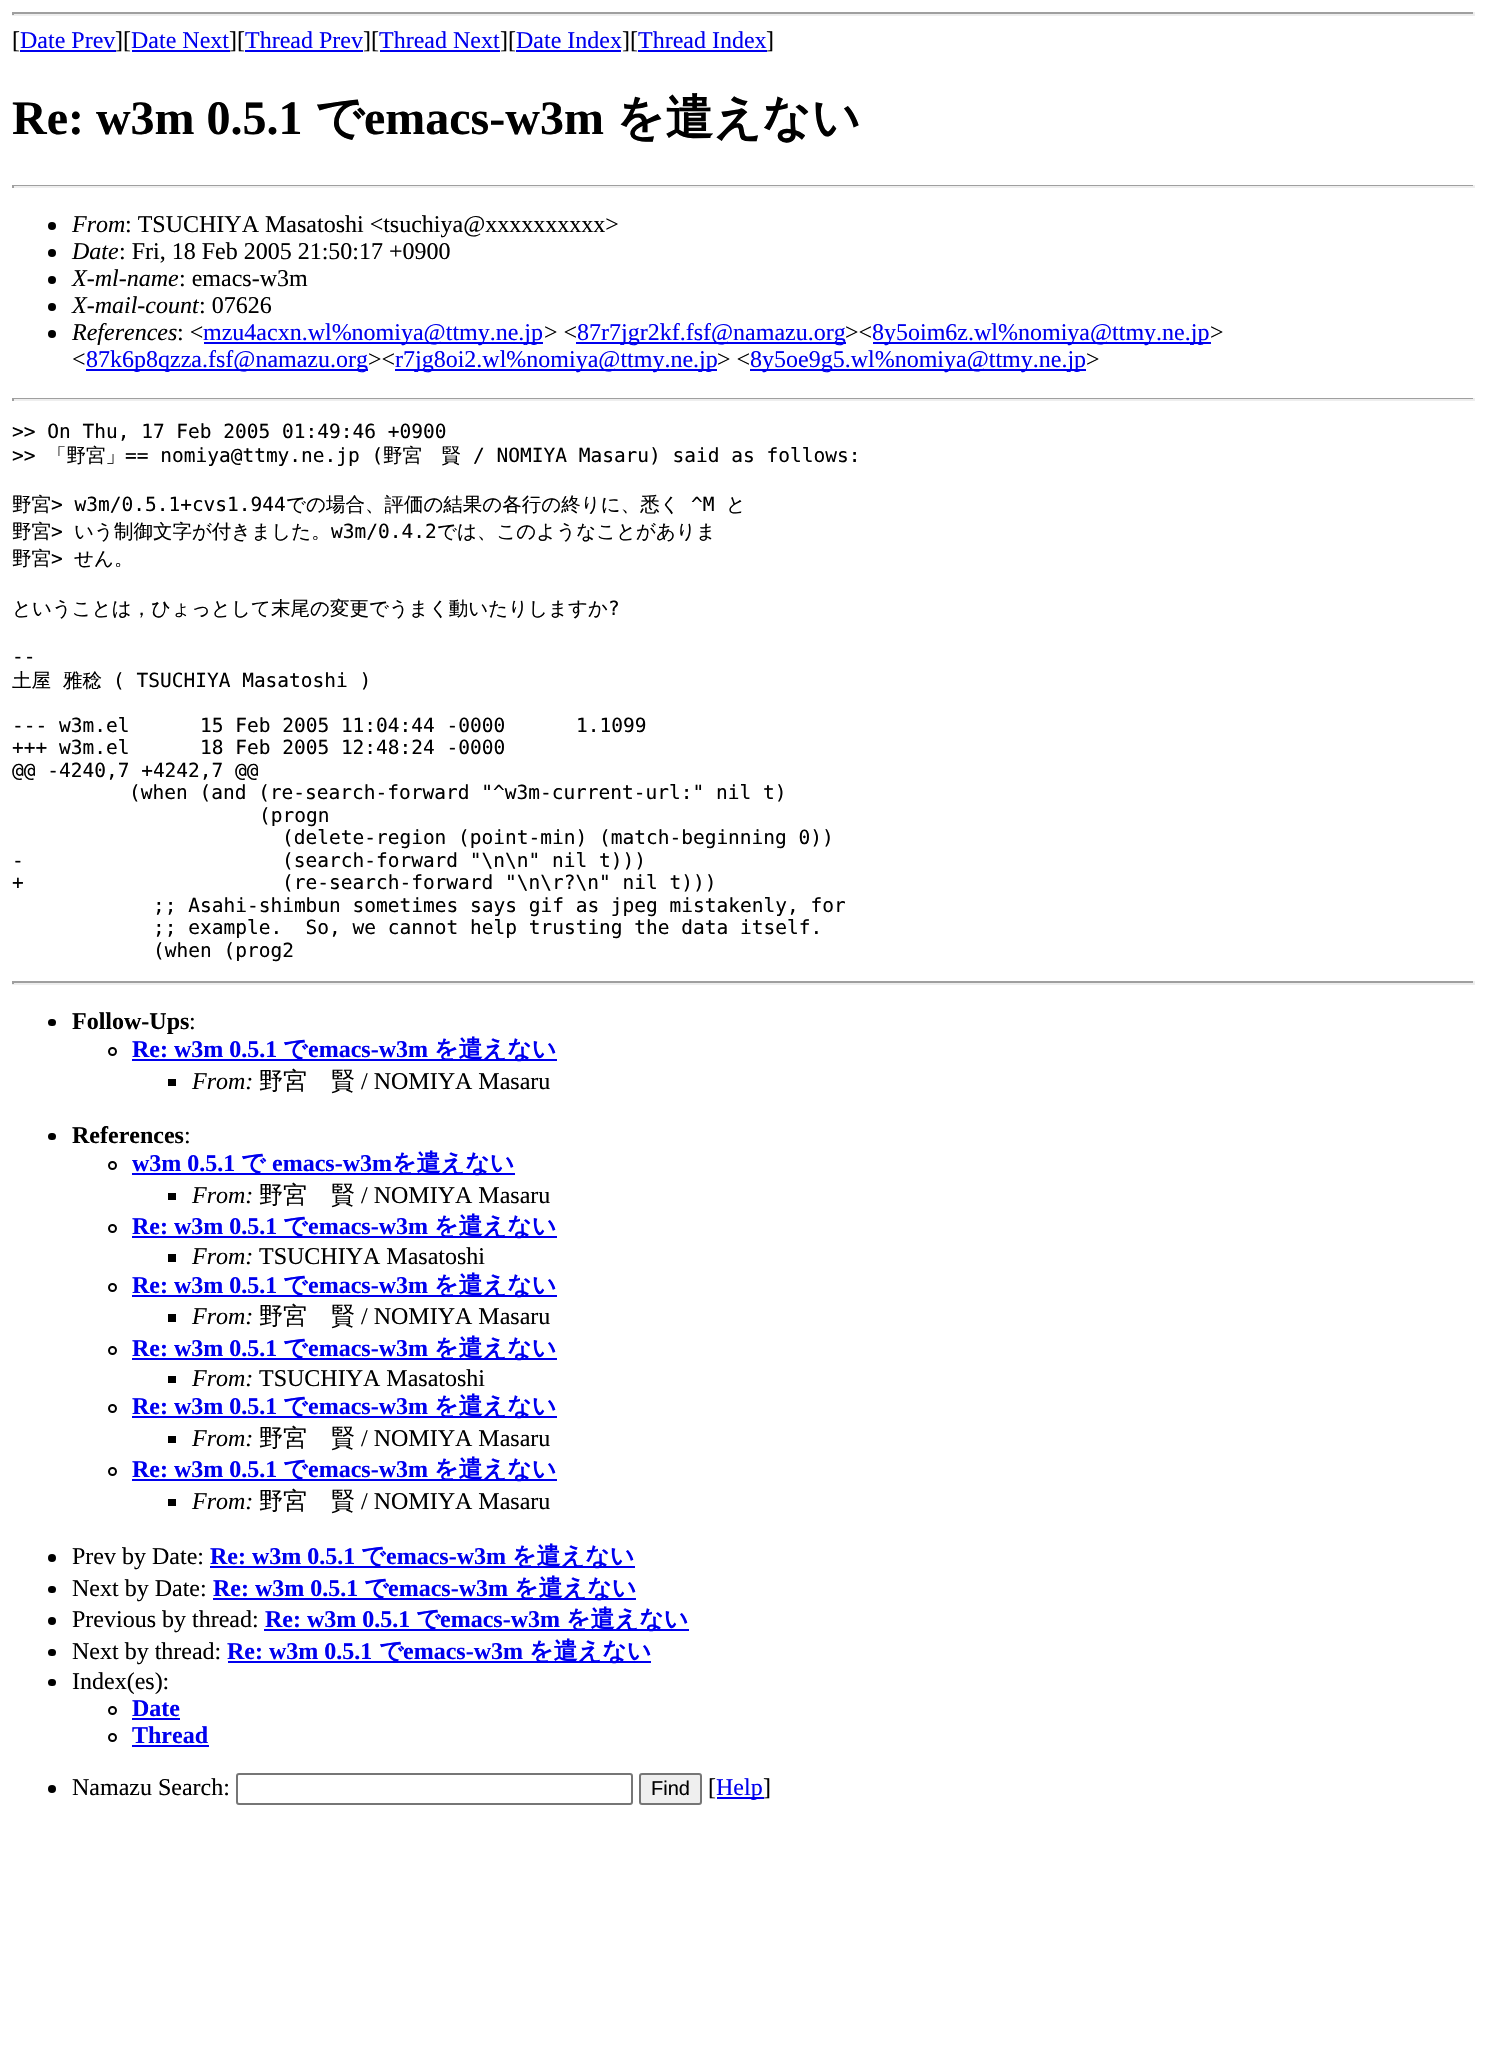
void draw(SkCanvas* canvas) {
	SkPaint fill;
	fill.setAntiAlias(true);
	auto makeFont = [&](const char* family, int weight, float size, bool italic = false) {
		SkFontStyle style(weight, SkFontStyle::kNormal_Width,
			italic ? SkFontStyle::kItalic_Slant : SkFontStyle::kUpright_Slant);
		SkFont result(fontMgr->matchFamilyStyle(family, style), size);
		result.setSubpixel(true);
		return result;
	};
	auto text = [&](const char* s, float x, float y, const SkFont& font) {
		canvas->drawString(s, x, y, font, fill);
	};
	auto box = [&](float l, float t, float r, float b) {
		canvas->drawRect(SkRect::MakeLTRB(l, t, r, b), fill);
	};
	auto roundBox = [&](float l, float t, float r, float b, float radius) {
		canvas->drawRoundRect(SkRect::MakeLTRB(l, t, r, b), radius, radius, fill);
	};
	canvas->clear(0xFFFFFFFF);
	fill.setColor(0xFF9F9F9F);
	box(12, 12, 1475, 14);
	fill.setColor(0xFFEEEEEE);
	box(1473, 12, 1475, 15);
	box(12, 14, 1475, 16);
	fill.setColor(0xFF9F9F9F);
	box(12, 12, 14, 15);
	fill.setColor(0xFF0000EE);
	box(20, 50, 116, 52);
	box(132, 50, 230, 52);
	box(245, 50, 363, 52);
	box(380, 50, 500, 52);
	box(516, 50, 621, 52);
	box(638, 50, 767, 52);
	fill.setColor(0xFF9F9F9F);
	box(12, 185, 1475, 186);
	fill.setColor(0xFFEEEEEE);
	box(1473, 185, 1475, 188);
	box(12, 186, 1475, 188);
	fill.setColor(0xFF9F9F9F);
	box(12, 185, 14, 188);
	fill.setColor(0xFF000000);
	canvas->drawCircle(52, 226, 4, fill);
	canvas->drawCircle(52, 253, 4, fill);
	canvas->drawCircle(52, 280, 4, fill);
	canvas->drawCircle(52, 307, 4, fill);
	canvas->drawCircle(52, 334, 4, fill);
	fill.setColor(0xFF0000EE);
	box(204, 342, 543, 344);
	box(576, 342, 846, 344);
	box(873, 342, 1211, 344);
	box(86, 369, 368, 371);
	box(395, 369, 717, 371);
	box(750, 369, 1086, 371);
	fill.setColor(0xFF9F9F9F);
	box(12, 398, 1475, 399);
	fill.setColor(0xFFEEEEEE);
	box(1473, 398, 1475, 401);
	box(12, 399, 1475, 401);
	fill.setColor(0xFF9F9F9F);
	box(12, 398, 14, 401);
	box(12, 981, 1475, 983);
	fill.setColor(0xFFEEEEEE);
	box(1473, 981, 1475, 984);
	box(12, 983, 1475, 985);
	fill.setColor(0xFF9F9F9F);
	box(12, 981, 14, 984);
	fill.setColor(0xFF000000);
	roundBox(48, 1019, 56, 1026, 3.5f);
	fill.setStyle(SkPaint::kStroke_Style);
	fill.setStrokeWidth(2);
	canvas->drawCircle(112.5f, 1051.5f, 3.5f, fill);
	fill.setStyle(SkPaint::kFill_Style);
	fill.setColor(0xFF0000EE);
	box(132, 1059, 557, 1061);
	fill.setColor(0xFF000000);
	box(168, 1079, 176, 1086);
	roundBox(48, 1133, 56, 1140, 3.5f);
	fill.setStyle(SkPaint::kStroke_Style);
	canvas->drawCircle(112.5f, 1165.5f, 3.5f, fill);
	fill.setStyle(SkPaint::kFill_Style);
	fill.setColor(0xFF0000EE);
	box(132, 1173, 515, 1175);
	fill.setColor(0xFF000000);
	box(168, 1193, 176, 1200);
	fill.setStyle(SkPaint::kStroke_Style);
	canvas->drawCircle(112.5f, 1228.5f, 3.5f, fill);
	fill.setStyle(SkPaint::kFill_Style);
	fill.setColor(0xFF0000EE);
	box(132, 1236, 557, 1238);
	fill.setColor(0xFF000000);
	box(168, 1254, 176, 1262);
	fill.setStyle(SkPaint::kStroke_Style);
	canvas->drawCircle(112.5f, 1287.5f, 3.5f, fill);
	fill.setStyle(SkPaint::kFill_Style);
	fill.setColor(0xFF0000EE);
	box(132, 1295, 557, 1297);
	fill.setColor(0xFF000000);
	box(168, 1314, 176, 1322);
	fill.setStyle(SkPaint::kStroke_Style);
	canvas->drawCircle(112.5f, 1350.5f, 3.5f, fill);
	fill.setStyle(SkPaint::kFill_Style);
	fill.setColor(0xFF0000EE);
	box(132, 1358, 557, 1360);
	fill.setColor(0xFF000000);
	box(168, 1376, 176, 1383);
	fill.setStyle(SkPaint::kStroke_Style);
	canvas->drawCircle(112.5f, 1408.5f, 3.5f, fill);
	fill.setStyle(SkPaint::kFill_Style);
	fill.setColor(0xFF0000EE);
	box(132, 1416, 557, 1418);
	fill.setColor(0xFF000000);
	box(168, 1436, 176, 1443);
	fill.setStyle(SkPaint::kStroke_Style);
	canvas->drawCircle(112.5f, 1471.5f, 3.5f, fill);
	fill.setStyle(SkPaint::kFill_Style);
	fill.setColor(0xFF0000EE);
	box(132, 1479, 557, 1481);
	fill.setColor(0xFF000000);
	box(168, 1499, 176, 1506);
	canvas->drawCircle(52, 1558, 4, fill);
	fill.setColor(0xFF0000EE);
	box(210, 1566, 635, 1568);
	fill.setColor(0xFF000000);
	roundBox(48, 1586, 56, 1593, 3.5f);
	fill.setColor(0xFF0000EE);
	box(213, 1598, 636, 1600);
	fill.setColor(0xFF000000);
	canvas->drawCircle(52, 1621, 4, fill);
	fill.setColor(0xFF0000EE);
	box(264, 1629, 689, 1631);
	fill.setColor(0xFF000000);
	roundBox(48, 1649, 56, 1656, 3.5f);
	fill.setColor(0xFF0000EE);
	box(228, 1661, 651, 1663);
	fill.setColor(0xFF000000);
	roundBox(48, 1679, 56, 1686, 3.5f);
	fill.setStyle(SkPaint::kStroke_Style);
	canvas->drawCircle(112.5f, 1710.5f, 3.5f, fill);
	fill.setStyle(SkPaint::kFill_Style);
	fill.setColor(0xFF0000EE);
	box(132, 1718, 180, 1720);
	fill.setStyle(SkPaint::kStroke_Style);
	fill.setColor(0xFF000000);
	canvas->drawCircle(112.5f, 1737.5f, 3.5f, fill);
	fill.setStyle(SkPaint::kFill_Style);
	fill.setColor(0xFF0000EE);
	box(132, 1745, 209, 1747);
	fill.setColor(0xFF000000);
	canvas->drawCircle(52, 1789, 4, fill);
	fill.setStyle(SkPaint::kStroke_Style);
	fill.setColor(0xFF767676);
	canvas->drawRoundRect(SkRect::MakeLTRB(237, 1774, 632, 1804), 2, 2, fill);
	fill.setStyle(SkPaint::kFill_Style);
	fill.setColor(0xFFEFEFEF);
	canvas->drawRoundRect(SkRect::MakeLTRB(640, 1774, 701, 1804), 2, 2, fill);
	fill.setStyle(SkPaint::kStroke_Style);
	fill.setColor(0xFF767676);
	canvas->drawRoundRect(SkRect::MakeLTRB(640, 1774, 701, 1804), 2, 2, fill);
	fill.setStyle(SkPaint::kFill_Style);
	fill.setColor(0xFF0000EE);
	box(717, 1797, 764, 1799);
	auto font1 = makeFont("Liberation Serif", 400, 24);
	fill.setColor(0xFF000000);
	text("[", 12, 48, font1);
	fill.setColor(0xFF0000EE);
	text("Date Prev", 20, 48, font1);
	fill.setColor(0xFF000000);
	text("][", 115, 48, font1);
	fill.setColor(0xFF0000EE);
	text("Date Next", 131, 48, font1);
	fill.setColor(0xFF000000);
	text("][", 229, 48, font1);
	fill.setColor(0xFF0000EE);
	text("Thread Prev", 245, 48, font1);
	fill.setColor(0xFF000000);
	text("][", 363, 48, font1);
	fill.setColor(0xFF0000EE);
	text("Thread Next", 379, 48, font1);
	fill.setColor(0xFF000000);
	text("][", 500, 48, font1);
	fill.setColor(0xFF0000EE);
	text("Date Index", 516, 48, font1);
	fill.setColor(0xFF000000);
	text("][", 622, 48, font1);
	fill.setColor(0xFF0000EE);
	text("Thread Index", 638, 48, font1);
	fill.setColor(0xFF000000);
	text("]", 766, 48, font1);
	auto font2 = makeFont("Liberation Serif", 700, 48);
	text("Re: w3m 0.5.1", 12, 134, font2);
	auto font3 = makeFont("WenQuanYi Zen Hei", 700, 48);
	text("で", 315, 134, font3);
	text("emacs-w3m", 364, 134, font2);
	text("を遣えない", 616, 134, font3);
	auto font4 = makeFont("Liberation Serif", 400, 24, true);
	text("From", 72, 232, font4);
	text(": TSUCHIYA Masatoshi <tsuchiya@xxxxxxxxxx>", 125, 232, font1);
	text("Date", 72, 259, font4);
	text(": Fri, 18 Feb 2005 21:50:17 +0900", 119, 259, font1);
	text("X-ml-name", 72, 286, font4);
	text(": emacs-w3m", 179, 286, font1);
	text("X-mail-count", 72, 313, font4);
	text(": 07626", 199, 313, font1);
	text("References", 72, 340, font4);
	text(": <", 177, 340, font1);
	fill.setColor(0xFF0000EE);
	text("mzu4acxn.wl%nomiya@ttmy.ne.jp", 203, 340, font1);
	fill.setColor(0xFF000000);
	text("> <", 544, 340, font1);
	fill.setColor(0xFF0000EE);
	text("87r7jgr2kf.fsf@namazu.org", 577, 340, font1);
	fill.setColor(0xFF000000);
	text("><", 845, 340, font1);
	fill.setColor(0xFF0000EE);
	text("8y5oim6z.wl%nomiya@ttmy.ne.jp", 872, 340, font1);
	fill.setColor(0xFF000000);
	text(">", 1210, 340, font1);
	text("<", 72, 367, font1);
	fill.setColor(0xFF0000EE);
	text("87k6p8qzza.fsf@namazu.org", 86, 367, font1);
	fill.setColor(0xFF000000);
	text("><", 368, 367, font1);
	fill.setColor(0xFF0000EE);
	text("r7jg8oi2.wl%nomiya@ttmy.ne.jp", 395, 367, font1);
	fill.setColor(0xFF000000);
	text("> <", 717, 367, font1);
	fill.setColor(0xFF0000EE);
	text("8y5oe9g5.wl%nomiya@ttmy.ne.jp", 750, 367, font1);
	fill.setColor(0xFF000000);
	text(">", 1086, 367, font1);
	auto font5 = makeFont("DejaVu Sans Mono", 400, 19.5f);
	text(">> On Thu, 17 Feb 2005 01:49:46 +0900", 12, 438, font5);
	text(">>", 12, 462, font5);
	auto font6 = makeFont("WenQuanYi Zen Hei", 500, 19.5f);
	text("「野宮」", 47, 462, font6);
	text("== nomiya@ttmy.ne.jp (", 125, 462, font5);
	text("野宮　賢", 383, 462, font6);
	text("/ NOMIYA Masaru) said as follows:", 473, 462, font5);
	text("野宮", 12, 511, font6);
	text("> w3m/0.5.1+cvs1.944", 51, 511, font5);
	text("での場合、評価の結果の各行の終りに、悉く", 286, 511, font6);
	text("^M", 691, 511, font5);
	text("と", 726, 511, font6);
	text("野宮", 12, 538, font6);
	text(">", 51, 538, font5);
	text("いう制御文字が付きました。", 74, 538, font6);
	text("w3m/0.4.2", 331, 538, font5);
	text("では、このようなことがありま", 437, 538, font6);
	text("野宮", 12, 565, font6);
	text(">", 51, 565, font5);
	text("せん。", 74, 565, font6);
	text("ということは，ひょっとして末尾の変更でうまく動いたりしますか", 12, 615, font6);
	text("?", 608, 615, font5);
	text("--", 12, 663, font5);
	text("土屋", 12, 687, font6);
	text("雅稔", 63, 687, font6);
	text("( TSUCHIYA Masatoshi )", 113, 687, font5);
	text("--- w3m.el", 12, 732, font5);
	text("15 Feb 2005 11:04:44 -0000", 200, 732, font5);
	text("1.1099", 576, 732, font5);
	text("+++ w3m.el", 12, 754, font5);
	text("18 Feb 2005 12:48:24 -0000", 200, 754, font5);
	text("@@ -4240,7 +4242,7 @@", 12, 777, font5);
	text("(when (and (re-search-forward \"^w3m-current-url:\" nil t)", 129, 799, font5);
	text("(progn", 259, 822, font5);
	text("(delete-region (point-min) (match-beginning 0))", 282, 844, font5);
	text("-", 12, 867, font5);
	text("(search-forward \"\\n\\n\" nil t)))", 282, 867, font5);
	text("+", 12, 889, font5);
	text("(re-search-forward \"\\n\\r?\\n\" nil t)))", 282, 889, font5);
	text(";; Asahi-shimbun sometimes says gif as jpeg mistakenly, for", 153, 912, font5);
	text(";; example.  So, we cannot help trusting the data itself.", 153, 934, font5);
	text("(when (prog2", 153, 957, font5);
	auto font7 = makeFont("Liberation Serif", 700, 24);
	text("Follow-Ups", 72, 1029, font7);
	text(":", 189, 1029, font1);
	fill.setColor(0xFF0000EE);
	text("Re: w3m 0.5.1", 132, 1057, font7);
	auto font8 = makeFont("WenQuanYi Zen Hei", 700, 24);
	text("で", 283, 1057, font8);
	text("emacs-w3m", 308, 1057, font7);
	text("を遣えない", 434, 1057, font8);
	fill.setColor(0xFF000000);
	text("From:", 192, 1089, font4);
	auto font9 = makeFont("WenQuanYi Zen Hei", 500, 24);
	text("野宮　賢", 259, 1089, font9);
	text("/ NOMIYA Masaru", 361, 1089, font1);
	text("References", 72, 1143, font7);
	text(":", 184, 1143, font1);
	fill.setColor(0xFF0000EE);
	text("w3m 0.5.1", 132, 1171, font7);
	text("で", 241, 1171, font8);
	text("emacs-w3m", 272, 1171, font7);
	text("を遣えない", 392, 1171, font8);
	fill.setColor(0xFF000000);
	text("From:", 192, 1203, font4);
	text("野宮　賢", 259, 1203, font9);
	text("/ NOMIYA Masaru", 361, 1203, font1);
	fill.setColor(0xFF0000EE);
	text("Re: w3m 0.5.1", 132, 1234, font7);
	text("で", 283, 1234, font8);
	text("emacs-w3m", 308, 1234, font7);
	text("を遣えない", 434, 1234, font8);
	fill.setColor(0xFF000000);
	text("From:", 192, 1264, font4);
	text("TSUCHIYA Masatoshi", 259, 1264, font1);
	fill.setColor(0xFF0000EE);
	text("Re: w3m 0.5.1", 132, 1293, font7);
	text("で", 283, 1293, font8);
	text("emacs-w3m", 308, 1293, font7);
	text("を遣えない", 434, 1293, font8);
	fill.setColor(0xFF000000);
	text("From:", 192, 1324, font4);
	text("野宮　賢", 259, 1324, font9);
	text("/ NOMIYA Masaru", 361, 1324, font1);
	fill.setColor(0xFF0000EE);
	text("Re: w3m 0.5.1", 132, 1356, font7);
	text("で", 283, 1356, font8);
	text("emacs-w3m", 308, 1356, font7);
	text("を遣えない", 434, 1356, font8);
	fill.setColor(0xFF000000);
	text("From:", 192, 1386, font4);
	text("TSUCHIYA Masatoshi", 259, 1386, font1);
	fill.setColor(0xFF0000EE);
	text("Re: w3m 0.5.1", 132, 1414, font7);
	text("で", 283, 1414, font8);
	text("emacs-w3m", 308, 1414, font7);
	text("を遣えない", 434, 1414, font8);
	fill.setColor(0xFF000000);
	text("From:", 192, 1446, font4);
	text("野宮　賢", 259, 1446, font9);
	text("/ NOMIYA Masaru", 361, 1446, font1);
	fill.setColor(0xFF0000EE);
	text("Re: w3m 0.5.1", 132, 1477, font7);
	text("で", 283, 1477, font8);
	text("emacs-w3m", 308, 1477, font7);
	text("を遣えない", 434, 1477, font8);
	fill.setColor(0xFF000000);
	text("From:", 192, 1509, font4);
	text("野宮　賢", 259, 1509, font9);
	text("/ NOMIYA Masaru", 361, 1509, font1);
	text("Prev by Date:", 72, 1564, font1);
	fill.setColor(0xFF0000EE);
	text("Re: w3m 0.5.1", 210, 1564, font7);
	text("で", 361, 1564, font8);
	text("emacs-w3m", 386, 1564, font7);
	text("を遣えない", 512, 1564, font8);
	fill.setColor(0xFF000000);
	text("Next by Date:", 72, 1596, font1);
	fill.setColor(0xFF0000EE);
	text("Re: w3m 0.5.1", 213, 1596, font7);
	text("で", 364, 1596, font8);
	text("emacs-w3m", 388, 1596, font7);
	text("を遣えない", 514, 1596, font8);
	fill.setColor(0xFF000000);
	text("Previous by thread:", 72, 1627, font1);
	fill.setColor(0xFF0000EE);
	text("Re: w3m 0.5.1", 265, 1627, font7);
	text("で", 416, 1627, font8);
	text("emacs-w3m", 440, 1627, font7);
	text("を遣えない", 566, 1627, font8);
	fill.setColor(0xFF000000);
	text("Next by thread:", 72, 1659, font1);
	fill.setColor(0xFF0000EE);
	text("Re: w3m 0.5.1", 227, 1659, font7);
	text("で", 379, 1659, font8);
	text("emacs-w3m", 403, 1659, font7);
	text("を遣えない", 529, 1659, font8);
	fill.setColor(0xFF000000);
	text("Index(es):", 72, 1689, font1);
	fill.setColor(0xFF0000EE);
	text("Date", 132, 1716, font7);
	text("Thread", 132, 1743, font7);
	fill.setColor(0xFF000000);
	text("Namazu Search:", 72, 1795, font1);
	auto font10 = makeFont("Liberation Sans", 400, 20);
	text("Find", 651, 1795, font10);
	text("[", 708, 1795, font1);
	fill.setColor(0xFF0000EE);
	text("Help", 716, 1795, font1);
	fill.setColor(0xFF000000);
	text("]", 763, 1795, font1);
}
